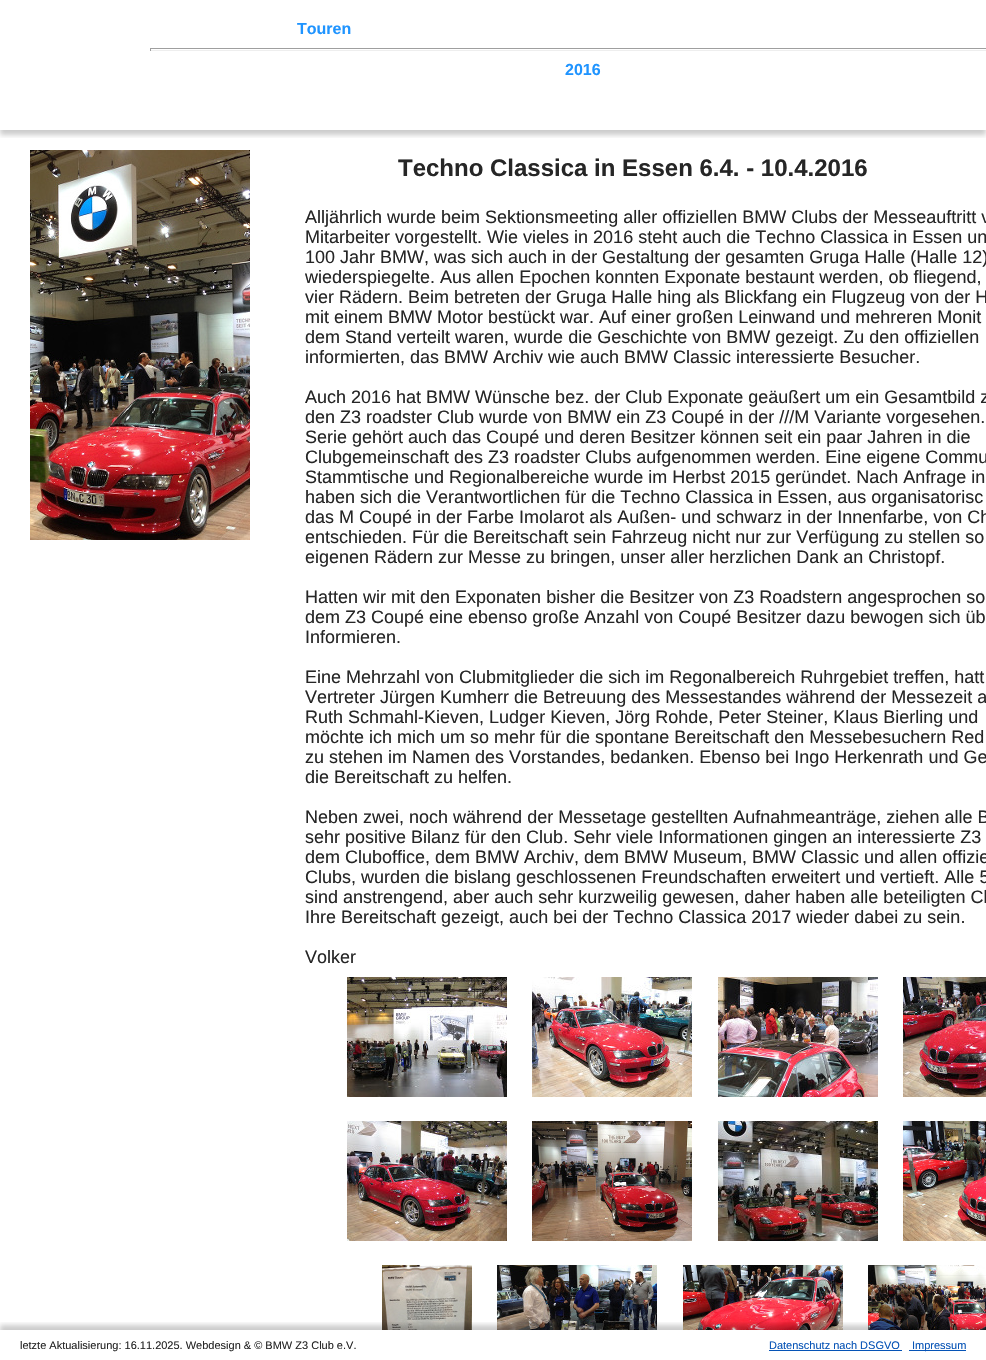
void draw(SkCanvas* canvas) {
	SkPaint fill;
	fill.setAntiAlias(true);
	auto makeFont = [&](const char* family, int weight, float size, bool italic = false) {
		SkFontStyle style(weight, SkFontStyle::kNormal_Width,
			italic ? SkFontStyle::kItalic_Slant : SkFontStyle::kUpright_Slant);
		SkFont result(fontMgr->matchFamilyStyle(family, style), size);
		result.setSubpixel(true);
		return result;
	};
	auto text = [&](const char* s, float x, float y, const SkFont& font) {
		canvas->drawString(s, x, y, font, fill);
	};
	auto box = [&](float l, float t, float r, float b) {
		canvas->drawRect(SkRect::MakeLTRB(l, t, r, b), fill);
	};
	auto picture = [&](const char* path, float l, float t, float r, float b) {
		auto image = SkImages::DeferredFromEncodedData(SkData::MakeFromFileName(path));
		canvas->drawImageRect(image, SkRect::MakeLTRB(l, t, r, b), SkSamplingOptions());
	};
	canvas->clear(0xFFFFFFFF);
	canvas->save();
	canvas->clipRect(SkRect::MakeLTRB(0, 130, 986, 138));
	fill.setColor(0x33000000);
	fill.setMaskFilter(SkMaskFilter::MakeBlur(kNormal_SkBlurStyle, 2.5f));
	canvas->drawRect(SkRect::MakeLTRB(0, 5, 986, 135), fill);
	fill.setMaskFilter(nullptr);
	canvas->restore();
	fill.setColor(0xFF9F9F9F);
	box(150, 48, 986, 49);
	fill.setColor(0xFFEEEEEE);
	box(150, 50, 986, 51);
	fill.setColor(0xFF9F9F9F);
	box(150, 48, 151, 51);
	picture("image0.png", 30, 150, 250, 540);
	picture("image1.png", 347, 977, 507, 1097);
	picture("image2.png", 532, 977, 692, 1097);
	picture("image3.png", 718, 977, 878, 1097);
	picture("image4.png", 903, 977, 986, 1097);
	picture("image5.png", 347, 1121, 507, 1241);
	picture("image6.png", 532, 1121, 692, 1241);
	picture("image7.png", 718, 1121, 878, 1241);
	picture("image8.png", 903, 1121, 986, 1241);
	picture("image9.png", 382, 1265, 472, 1330);
	picture("image10.png", 497, 1265, 657, 1330);
	picture("image11.png", 683, 1265, 843, 1330);
	picture("image12.png", 868, 1265, 986, 1330);
	canvas->save();
	canvas->clipRect(SkRect::MakeLTRB(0, 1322, 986, 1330));
	fill.setColor(0x33000000);
	fill.setMaskFilter(SkMaskFilter::MakeBlur(kNormal_SkBlurStyle, 2.5f));
	canvas->drawRect(SkRect::MakeLTRB(0, 1325, 986, 1355), fill);
	fill.setMaskFilter(nullptr);
	canvas->restore();
	fill.setColor(0xFF0653B6);
	box(769, 1350, 902, 1351);
	box(909, 1350, 966, 1351);
	auto font1 = makeFont("Liberation Sans", 700, 16);
	fill.setColor(0xFF1F94FF);
	text("Touren", 297, 34, font1);
	text("2016", 565, 75, font1);
	auto font2 = makeFont("Liberation Sans", 700, 24);
	fill.setColor(0xFF262626);
	text("Techno Classica in Essen 6.4. - 10.4.2016", 398, 176, font2);
	auto font3 = makeFont("Liberation Sans", 400, 18);
	text("Alljährlich wurde beim Sektionsmeeting aller offiziellen BMW Clubs der Messeauftritt v", 305, 223, font3);
	text("Mitarbeiter vorgestellt. Wie vieles in 2016 steht auch die Techno Classica in Essen un", 305, 243, font3);
	text("100 Jahr BMW, was sich auch in der Gestaltung der gesamten Gruga Halle (Halle 12)", 305, 263, font3);
	text("wiederspiegelte. Aus allen Epochen konnten Exponate bestaunt werden, ob fliegend,", 305, 283, font3);
	text("vier Rädern. Beim betreten der Gruga Halle hing als Blickfang ein Flugzeug von der H", 305, 303, font3);
	text("mit einem BMW Motor bestückt war. Auf einer großen Leinwand und mehreren Monit", 305, 323, font3);
	text("dem Stand verteilt waren, wurde die Geschichte von BMW gezeigt. Zu den offiziellen", 305, 343, font3);
	text("informierten, das BMW Archiv wie auch BMW Classic interessierte Besucher.", 305, 363, font3);
	text("Auch 2016 hat BMW Wünsche bez. der Club Exponate geäußert um ein Gesamtbild z", 305, 403, font3);
	text("den Z3 roadster Club wurde von BMW ein Z3 Coupé in der ///M Variante vorgesehen.", 305, 423, font3);
	text("Serie gehört auch das Coupé und deren Besitzer können seit ein paar Jahren in die", 305, 443, font3);
	text("Clubgemeinschaft des Z3 roadster Clubs aufgenommen werden. Eine eigene Commu", 305, 463, font3);
	text("Stammtische und Regionalbereiche wurde im Herbst 2015 geründet. Nach Anfrage in", 305, 483, font3);
	text("haben sich die Verantwortlichen für die Techno Classica in Essen, aus organisatorisc", 305, 503, font3);
	text("das M Coupé in der Farbe Imolarot als Außen- und schwarz in der Innenfarbe, von Ch", 305, 523, font3);
	text("entschieden. Für die Bereitschaft sein Fahrzeug nicht nur zur Verfügung zu stellen so", 305, 543, font3);
	text("eigenen Rädern zur Messe zu bringen, unser aller herzlichen Dank an Christopf.", 305, 563, font3);
	text("Hatten wir mit den Exponaten bisher die Besitzer von Z3 Roadstern angesprochen so", 305, 603, font3);
	text("dem Z3 Coupé eine ebenso große Anzahl von Coupé Besitzer dazu bewogen sich üb", 305, 623, font3);
	text("Informieren.", 305, 643, font3);
	text("Eine Mehrzahl von Clubmitglieder die sich im Regonalbereich Ruhrgebiet treffen, hatt", 305, 683, font3);
	text("Vertreter Jürgen Kumherr die Betreuung des Messestandes während der Messezeit a", 305, 703, font3);
	text("Ruth Schmahl-Kieven, Ludger Kieven, Jörg Rohde, Peter Steiner, Klaus Bierling und", 305, 723, font3);
	text("möchte ich mich um so mehr für die spontane Bereitschaft den Messebesuchern Red", 305, 743, font3);
	text("zu stehen im Namen des Vorstandes, bedanken. Ebenso bei Ingo Herkenrath und Ge", 305, 763, font3);
	text("die Bereitschaft zu helfen.", 305, 783, font3);
	text("Neben zwei, noch während der Messetage gestellten Aufnahmeanträge, ziehen alle B", 305, 823, font3);
	text("sehr positive Bilanz für den Club. Sehr viele Informationen gingen an interessierte Z3", 305, 843, font3);
	text("dem Cluboffice, dem BMW Archiv, dem BMW Museum, BMW Classic und allen offizie", 305, 863, font3);
	text("Clubs, wurden die bislang geschlossenen Freundschaften erweitert und vertieft. Alle 5", 305, 883, font3);
	text("sind anstrengend, aber auch sehr kurzweilig gewesen, daher haben alle beteiligten Cl", 305, 903, font3);
	text("Ihre Bereitschaft gezeigt, auch bei der Techno Classica 2017 wieder dabei zu sein.", 305, 923, font3);
	text("Volker", 305, 963, font3);
	auto font4 = makeFont("Liberation Sans", 400, 11);
	text("letzte Aktualisierung: 16.11.2025. Webdesign & © BMW Z3 Club e.V.", 20, 1349, font4);
	fill.setColor(0xFF0653B6);
	text("Datenschutz nach DSGVO", 769, 1349, font4);
	text("Impressum", 912, 1349, font4);
}
